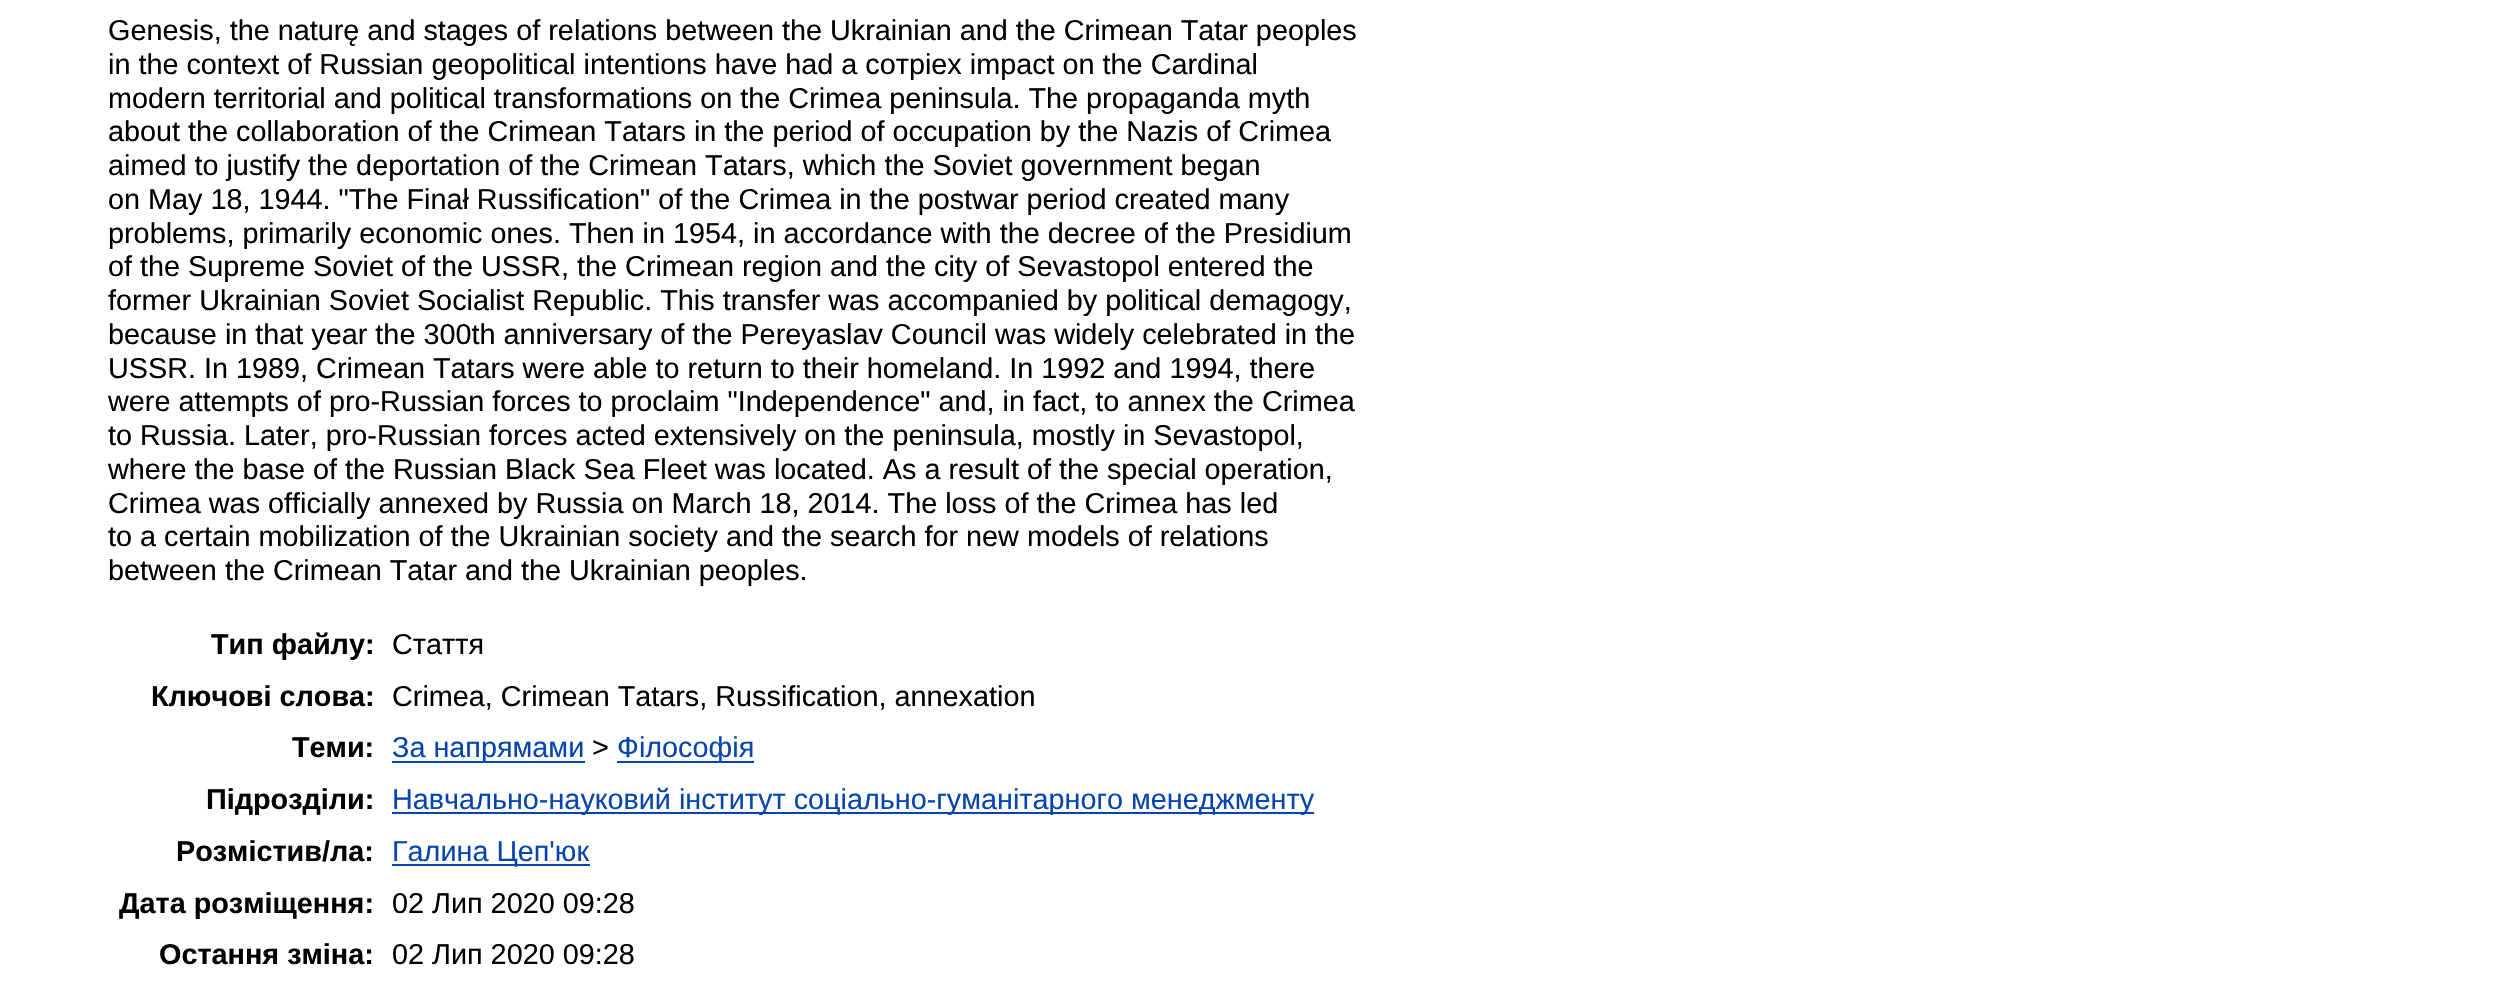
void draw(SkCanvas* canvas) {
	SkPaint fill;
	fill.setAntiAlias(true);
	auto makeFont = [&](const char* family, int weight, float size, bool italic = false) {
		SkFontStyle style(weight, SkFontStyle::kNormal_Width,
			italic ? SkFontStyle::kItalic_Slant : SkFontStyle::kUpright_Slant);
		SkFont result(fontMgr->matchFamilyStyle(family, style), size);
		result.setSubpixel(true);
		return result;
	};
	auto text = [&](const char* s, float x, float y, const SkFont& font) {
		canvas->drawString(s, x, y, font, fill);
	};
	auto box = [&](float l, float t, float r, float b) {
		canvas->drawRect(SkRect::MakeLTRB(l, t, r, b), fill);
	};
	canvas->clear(0xFFFFFFFF);
	fill.setColor(0xFF0645AD);
	box(392, 761, 585, 763);
	box(617, 761, 754, 763);
	box(392, 812, 1314, 814);
	box(392, 864, 590, 866);
	auto font1 = makeFont("Liberation Sans", 400, 28.8f);
	fill.setColor(0xFF000000);
	text("Genesis, the naturę and stages of relations between the Ukrainian and the Crimean Tatar peoples", 108, 40, font1);
	text("in the context of Russian geopolitical intentions have had а сотріех impact on the Cardinal", 108, 74, font1);
	text("modern territorial and political transformations on the Crimea peninsula. The propaganda myth", 108, 108, font1);
	text("about the collaboration of the Crimean Tatars in the period of occupation by the Nazis of Crimea", 108, 141, font1);
	text("aimed to justify the deportation of the Crimean Tatars, which the Soviet government began", 108, 175, font1);
	text("on May 18, 1944. \"The Finał Russification\" of the Crimea in the postwar period created many", 108, 209, font1);
	text("problems, primarily economic ones. Then in 1954, in accordance with the decree of the Presidium", 108, 243, font1);
	text("of the Supreme Soviet of the USSR, the Crimean region and the city of Sevastopol entered the", 108, 276, font1);
	text("former Ukrainian Soviet Socialist Republic. This transfer was accompanied by political demagogy,", 108, 310, font1);
	text("because in that year the 300th anniversary of the Pereyaslav Council was widely celebrated in the", 108, 344, font1);
	text("USSR. In 1989, Crimean Tatars were able to return to their homeland. In 1992 and 1994, there", 108, 378, font1);
	text("were attempts of pro-Russian forces to proclaim \"Independence\" and, in fact, to annex the Crimea", 108, 411, font1);
	text("to Russia. Later, pro-Russian forces acted extensively on the peninsula, mostly in Sevastopol,", 108, 445, font1);
	text("where the base of the Russian Black Sea Fleet was located. As a result of the special operation,", 108, 479, font1);
	text("Crimea was officially annexed by Russia on March 18, 2014. The loss of the Crimea has led", 108, 513, font1);
	text("to a certain mobilization of the Ukrainian society and the search for new models of relations", 108, 546, font1);
	text("between the Crimean Tatar and the Ukrainian peoples.", 108, 580, font1);
	auto font2 = makeFont("Liberation Sans", 700, 28.8f);
	text("Тип файлу:", 211, 654, font2);
	text("Стаття", 392, 654, font1);
	text("Ключові слова:", 151, 706, font2);
	text("Crimea, Crimean Tatars, Russification, annexation", 392, 706, font1);
	text("Теми:", 292, 757, font2);
	fill.setColor(0xFF0645AD);
	text("За напрямами", 392, 757, font1);
	fill.setColor(0xFF000000);
	text(">", 592, 757, font1);
	fill.setColor(0xFF0645AD);
	text("Філософія", 617, 757, font1);
	fill.setColor(0xFF000000);
	text("Підрозділи:", 206, 809, font2);
	fill.setColor(0xFF0645AD);
	text("Навчально-науковий інститут соціально-гуманітарного менеджменту", 392, 809, font1);
	fill.setColor(0xFF000000);
	text("Розмістив/ла:", 176, 861, font2);
	fill.setColor(0xFF0645AD);
	text("Галина Цеп'юк", 392, 861, font1);
	fill.setColor(0xFF000000);
	text("Дата розміщення:", 119, 913, font2);
	text("02 Лип 2020 09:28", 392, 913, font1);
	text("Остання зміна:", 159, 964, font2);
	text("02 Лип 2020 09:28", 392, 964, font1);
}
